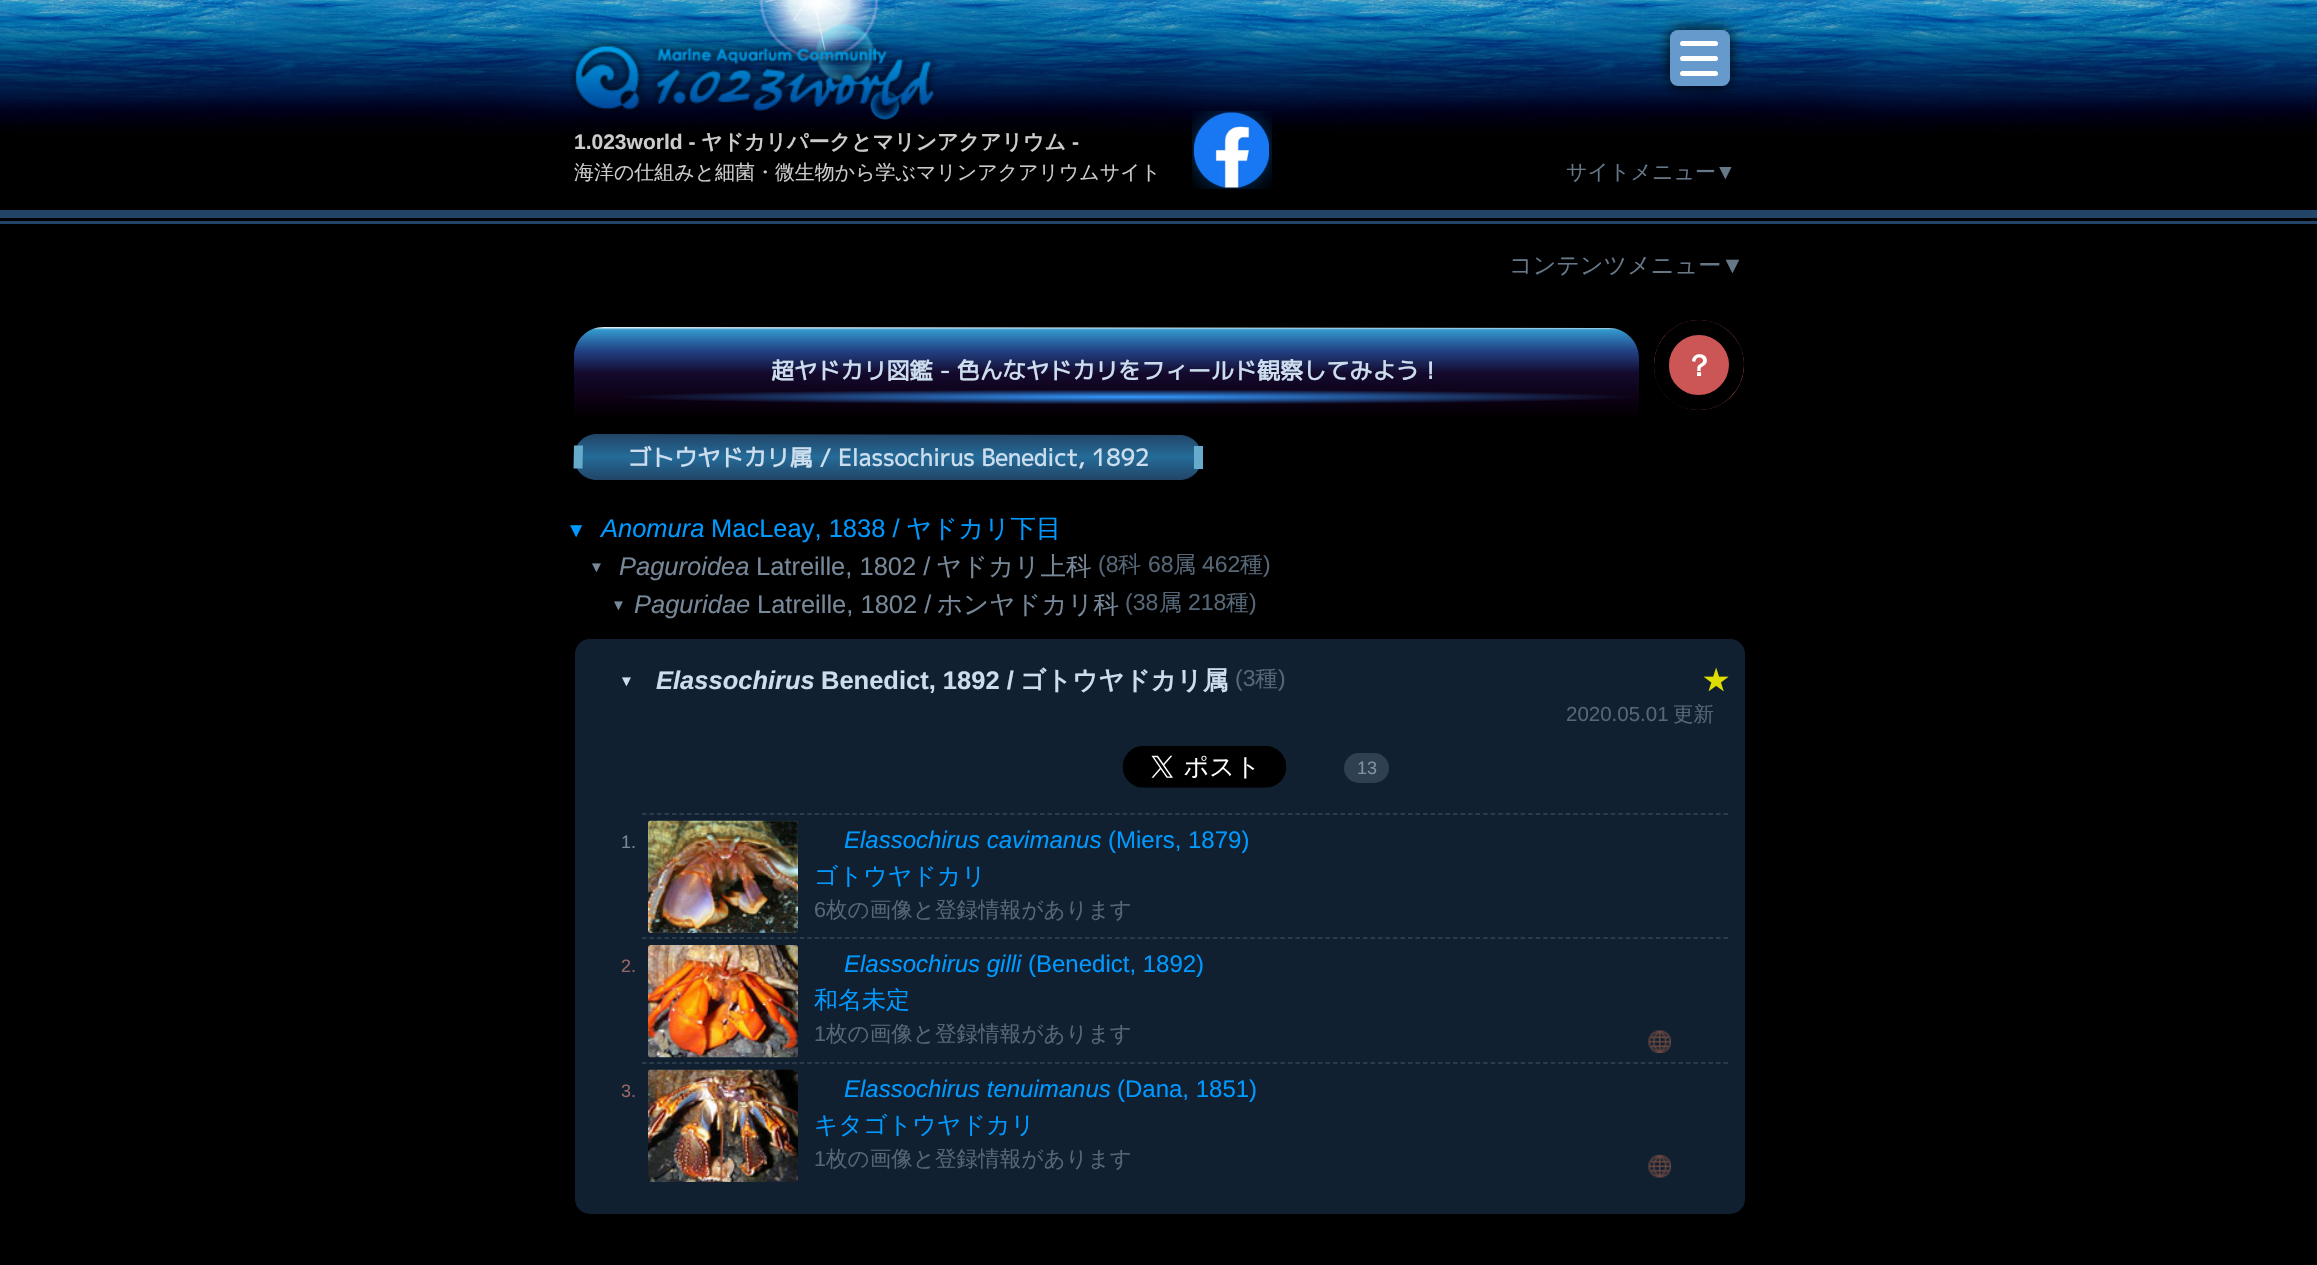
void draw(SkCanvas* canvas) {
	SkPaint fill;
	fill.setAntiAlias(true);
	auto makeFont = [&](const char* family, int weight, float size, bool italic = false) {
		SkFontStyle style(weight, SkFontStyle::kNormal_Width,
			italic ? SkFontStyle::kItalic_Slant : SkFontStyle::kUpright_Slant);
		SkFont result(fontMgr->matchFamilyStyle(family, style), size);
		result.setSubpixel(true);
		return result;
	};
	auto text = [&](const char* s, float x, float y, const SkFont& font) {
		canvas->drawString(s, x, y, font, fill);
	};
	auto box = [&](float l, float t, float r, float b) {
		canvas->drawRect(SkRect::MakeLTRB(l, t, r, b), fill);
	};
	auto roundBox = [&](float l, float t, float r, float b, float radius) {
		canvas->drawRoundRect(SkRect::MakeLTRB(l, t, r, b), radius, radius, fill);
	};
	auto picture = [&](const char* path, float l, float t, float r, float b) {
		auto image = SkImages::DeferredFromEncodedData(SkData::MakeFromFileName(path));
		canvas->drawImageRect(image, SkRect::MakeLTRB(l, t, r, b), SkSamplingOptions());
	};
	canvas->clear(0xFFFFFFFF);
	picture("image0.png", 0, 0, 2317, 210);
	picture("image1.png", 765, 0, 841, 51);
	fill.setColor(0xFF000000);
	fill.setMaskFilter(SkMaskFilter::MakeBlur(kNormal_SkBlurStyle, 7.5f));
	canvas->drawRoundRect(SkRect::MakeLTRB(1670, 30, 1730, 86), 8, 8, fill);
	fill.setMaskFilter(nullptr);
	fill.setColor(0xFF6699CC);
	roundBox(1670, 30, 1730, 86, 8);
	fill.setColor(0xFFFFFFFF);
	roundBox(1680, 41, 1718, 46, 2.5f);
	roundBox(1680, 56, 1718, 61, 2.5f);
	roundBox(1680, 71, 1718, 76, 2.5f);
	picture("image2.png", 569, 39, 937, 114);
	picture("image3.png", 1192, 111, 1272, 189);
	fill.setColor(0xFF000000);
	box(0, 218, 2317, 1265);
	fill.setColor(0xFF224466);
	box(0, 210, 2317, 218);
	box(0, 221, 2317, 224);
	{
		const SkColor colors[] = {0xFFFFFFFF, 0xFF3399CC, 0xFF224488, 0xFF140A2D, 0xFF0C0012, 0xFF000000};
		const float stops[] = {0, 0.03f, 0.25f, 0.5f, 0.8f, 1};
		const SkPoint ends[] = {{1106, 327}, {1106, 419}};
		fill.setShader(SkGradientShader::MakeLinear(ends, colors, stops, 6, SkTileMode::kClamp));
		fill.setAlpha(255);
	}
	canvas->drawPath(SkPathBuilder().moveTo(604, 327).lineTo(1609, 328).cubicTo(1625, 328, 1639, 341, 1639, 358).lineTo(1639, 420).lineTo(574, 419).lineTo(574, 357).cubicTo(574, 340, 587, 327, 604, 327).close().detach(), fill);
	fill.setShader(nullptr);
	fill.setColor(0xFFCC5555);
	canvas->drawPath(SkPathBuilder().moveTo(1699, 320).cubicTo(1724, 320, 1744, 340, 1744, 365).cubicTo(1744, 390, 1724, 410, 1699, 410).cubicTo(1674, 410, 1654, 390, 1654, 365).cubicTo(1654, 340, 1674, 320, 1699, 320).close().detach(), fill);
	fill.setStyle(SkPaint::kStroke_Style);
	fill.setStrokeWidth(15);
	fill.setColor(0xFF000000);
	canvas->drawPath(SkPathBuilder().moveTo(1699, 327.5f).cubicTo(1719.5f, 327.5f, 1736.5f, 344.5f, 1736.5f, 365).cubicTo(1736, 386, 1719.5f, 402.5f, 1698.5f, 402.5f).cubicTo(1678, 402.5f, 1661, 386, 1661.5f, 365).cubicTo(1661.5f, 344.5f, 1678, 327.5f, 1699, 327.5f).close().detach(), fill);
	fill.setStyle(SkPaint::kFill_Style);
	{
		const SkColor colors[] = {0xFF3399FF, 0x003399FF};
		const float stops[] = {0, 1};
		SkMatrix m = SkMatrix::Translate(1129, 397).preScale(510, 7.5f);
		fill.setShader(SkGradientShader::MakeRadial({0, 0}, 1, colors, stops, 2, SkTileMode::kClamp, 0, &m));
		fill.setAlpha(255);
	}
	canvas->drawPath(SkPathBuilder().moveTo(619, 389).lineTo(1639, 390).lineTo(1639, 405).lineTo(619, 404).close().detach(), fill);
	{
		const SkColor colors[] = {0xFF224466, 0xFF246C99, 0xFF224466};
		const float stops[] = {0, 0.5f, 1};
		const SkPoint ends[] = {{888, 434}, {888, 480}};
		fill.setShader(SkGradientShader::MakeLinear(ends, colors, stops, 3, SkTileMode::kClamp));
		fill.setAlpha(255);
	}
	canvas->drawPath(SkPathBuilder().moveTo(597, 434).lineTo(1180, 435).cubicTo(1192, 435, 1202, 445, 1202, 457).cubicTo(1202, 470, 1192, 480, 1180, 480).lineTo(597, 480).cubicTo(584, 480, 574, 470, 574, 457).cubicTo(574, 444, 584, 434, 597, 434).close().detach(), fill);
	fill.setShader(nullptr);
	fill.setColor(0xFF66AACC);
	box(1194, 446, 1203, 469);
	canvas->drawPath(SkPathBuilder().moveTo(574, 445.5f).lineTo(583, 445.5f).lineTo(582.5f, 468.5f).lineTo(573.5f, 468.5f).close().detach(), fill);
	fill.setColor(0xFF102030);
	roundBox(575, 639, 1745, 1214, 15);
	picture("image4.png", 1122, 746, 1287, 788);
	fill.setColor(0xFF2F4050);
	roundBox(1344, 753, 1389, 783, 15);
	fill.setStyle(SkPaint::kStroke_Style);
	fill.setStrokeWidth(1.5f);
	fill.setColor(0xFF334455);
	fill.setPathEffect(SkDashPathEffect::Make({{4.5f, 3.01f}}, 0));
	canvas->drawPath(SkPathBuilder().moveTo(642, 814).lineTo(1729.5f, 814).detach(), fill);
	fill.setPathEffect(nullptr);
	picture("image5.png", 648, 820, 798, 933);
	fill.setPathEffect(SkDashPathEffect::Make({{4.5f, 3.01f}}, 0));
	canvas->drawPath(SkPathBuilder().moveTo(642, 938).lineTo(1729.5f, 938).detach(), fill);
	fill.setPathEffect(nullptr);
	picture("image6.png", 648, 945, 798, 1058);
	picture("image7.png", 1648, 1030, 1671, 1053);
	fill.setPathEffect(SkDashPathEffect::Make({{4.5f, 3.01f}}, 0));
	canvas->drawPath(SkPathBuilder().moveTo(642, 1063).lineTo(1729.5f, 1063).detach(), fill);
	fill.setPathEffect(nullptr);
	picture("image8.png", 648, 1069, 798, 1182);
	picture("image9.png", 1648, 1154, 1671, 1178);
	auto font1 = makeFont("Liberation Sans", 700, 21);
	fill.setStyle(SkPaint::kFill_Style);
	fill.setColor(0xFFCCCCCC);
	text("1.023world -", 574, 149, font1);
	auto font2 = makeFont("WenQuanYi Zen Hei", 700, 21);
	text("ヤドカリパークとマリンアクアリウム", 701, 149, font2);
	text("-", 1072, 149, font1);
	auto font3 = makeFont("WenQuanYi Zen Hei", 500, 19.95f);
	text("海洋の仕組みと細菌・微生物から学ぶマリンアクアリウムサイト", 574, 179, font3);
	auto font4 = makeFont("WenQuanYi Zen Hei", 500, 21);
	fill.setColor(0xFF667788);
	text("サイトメニュー", 1566, 179, font4);
	auto font5 = makeFont("Liberation Sans", 400, 21);
	text("▼", 1715, 179, font5);
	auto font6 = makeFont("WenQuanYi Zen Hei", 500, 23.1f);
	text("コンテンツメニュー", 1509, 273, font6);
	auto font7 = makeFont("Liberation Sans", 400, 23.1f);
	text("▼", 1721, 273, font7);
	auto font8 = makeFont("M PLUS 1p", 700, 23.1f);
	fill.setColor(0xFFCCDDEE);
	text("超ヤドカリ図鑑 - 色んなヤドカリをフィールド観察してみよう！", 771, 379, font8);
	auto font9 = makeFont("WenQuanYi Zen Hei", 700, 30);
	fill.setColor(0xFFFFFFFF);
	text("？", 1684, 376, font9);
	fill.setColor(0xFFCCDDEE);
	text("ゴトウヤドカリ属 / Elassochirus Benedict, 1892", 628, 466, font8);
	auto font10 = makeFont("Liberation Sans", 400, 20.5f);
	fill.setColor(0xFF0099FF);
	text("▼", 566, 537, font10);
	auto font11 = makeFont("Liberation Sans", 400, 25.5f, true);
	text("Anomura", 601, 537, font11);
	auto font12 = makeFont("Liberation Sans", 400, 25.5f);
	text("MacLeay, 1838 /", 711, 537, font12);
	auto font13 = makeFont("WenQuanYi Zen Hei", 500, 25.5f);
	text("ヤドカリ下目", 906, 537, font13);
	auto font14 = makeFont("Liberation Sans", 400, 15);
	fill.setColor(0xFF778899);
	text("▼", 589, 572, font14);
	text("Paguroidea", 619, 575, font11);
	text("Latreille, 1802 /", 756, 575, font12);
	text("ヤドカリ上科", 936, 575, font13);
	auto font15 = makeFont("Liberation Sans", 400, 23);
	fill.setColor(0xFF556677);
	text("(8", 1098, 572, font15);
	auto font16 = makeFont("WenQuanYi Zen Hei", 500, 23);
	text("科", 1118, 572, font16);
	text("68", 1148, 572, font15);
	text("属", 1173, 572, font16);
	text("462", 1202, 572, font15);
	text("種", 1240, 572, font16);
	text(")", 1263, 572, font15);
	fill.setColor(0xFF778899);
	text("▼", 611, 610, font14);
	text("Paguridae", 634, 613, font11);
	text("Latreille, 1802 /", 757, 613, font12);
	text("ホンヤドカリ科", 937, 613, font13);
	fill.setColor(0xFF556677);
	text("(38", 1125, 610, font15);
	text("属", 1159, 610, font16);
	text("218", 1188, 610, font15);
	text("種", 1226, 610, font16);
	text(")", 1249, 610, font15);
	fill.setColor(0xFFCCDDEE);
	text("▼", 619, 686, font14);
	auto font17 = makeFont("Liberation Sans", 700, 25.5f, true);
	text("Elassochirus", 656, 689, font17);
	auto font18 = makeFont("Liberation Sans", 700, 25.5f);
	text("Benedict, 1892 /", 821, 689, font18);
	auto font19 = makeFont("WenQuanYi Zen Hei", 700, 25.5f);
	text("ゴトウヤドカリ属", 1020, 689, font19);
	fill.setColor(0xFF556677);
	text("(3", 1235, 686, font15);
	text("種", 1255, 686, font16);
	text(")", 1278, 686, font15);
	fill.setColor(0xFFDDDD00);
	text("★", 1703, 689, font19);
	fill.setColor(0xFF556677);
	text("2020.05.01", 1566, 721, font10);
	auto font20 = makeFont("WenQuanYi Zen Hei", 500, 20.5f);
	text("更新", 1673, 721, font20);
	auto font21 = makeFont("Liberation Sans", 400, 18);
	fill.setColor(0xFF8191A2);
	text("13", 1357, 774, font21);
	fill.setColor(0xFF778899);
	text("1.", 621, 848, font21);
	auto font22 = makeFont("Liberation Sans", 400, 24, true);
	fill.setColor(0xFF0099FF);
	text("Elassochirus cavimanus", 844, 848, font22);
	auto font23 = makeFont("Liberation Sans", 400, 24);
	text("(Miers, 1879)", 1108, 848, font23);
	auto font24 = makeFont("WenQuanYi Zen Hei", 500, 24);
	text("ゴトウヤドカリ", 814, 884, font24);
	auto font25 = makeFont("Liberation Sans", 400, 21.6f);
	fill.setColor(0xFF556677);
	text("6", 814, 917, font25);
	auto font26 = makeFont("WenQuanYi Zen Hei", 500, 21.6f);
	text("枚の画像と登録情報があります", 826, 917, font26);
	fill.setColor(0xFF996666);
	text("2.", 621, 972, font21);
	fill.setColor(0xFF0099FF);
	text("Elassochirus gilli", 844, 972, font22);
	text("(Benedict, 1892)", 1028, 972, font23);
	text("和名未定", 814, 1008, font24);
	fill.setColor(0xFF556677);
	text("1", 814, 1041, font25);
	text("枚の画像と登録情報があります", 826, 1041, font26);
	fill.setColor(0xFF996666);
	text("3.", 621, 1097, font21);
	fill.setColor(0xFF0099FF);
	text("Elassochirus tenuimanus", 844, 1097, font22);
	text("(Dana, 1851)", 1117, 1097, font23);
	text("キタゴトウヤドカリ", 814, 1133, font24);
	fill.setColor(0xFF556677);
	text("1", 814, 1166, font25);
	text("枚の画像と登録情報があります", 826, 1166, font26);
}
